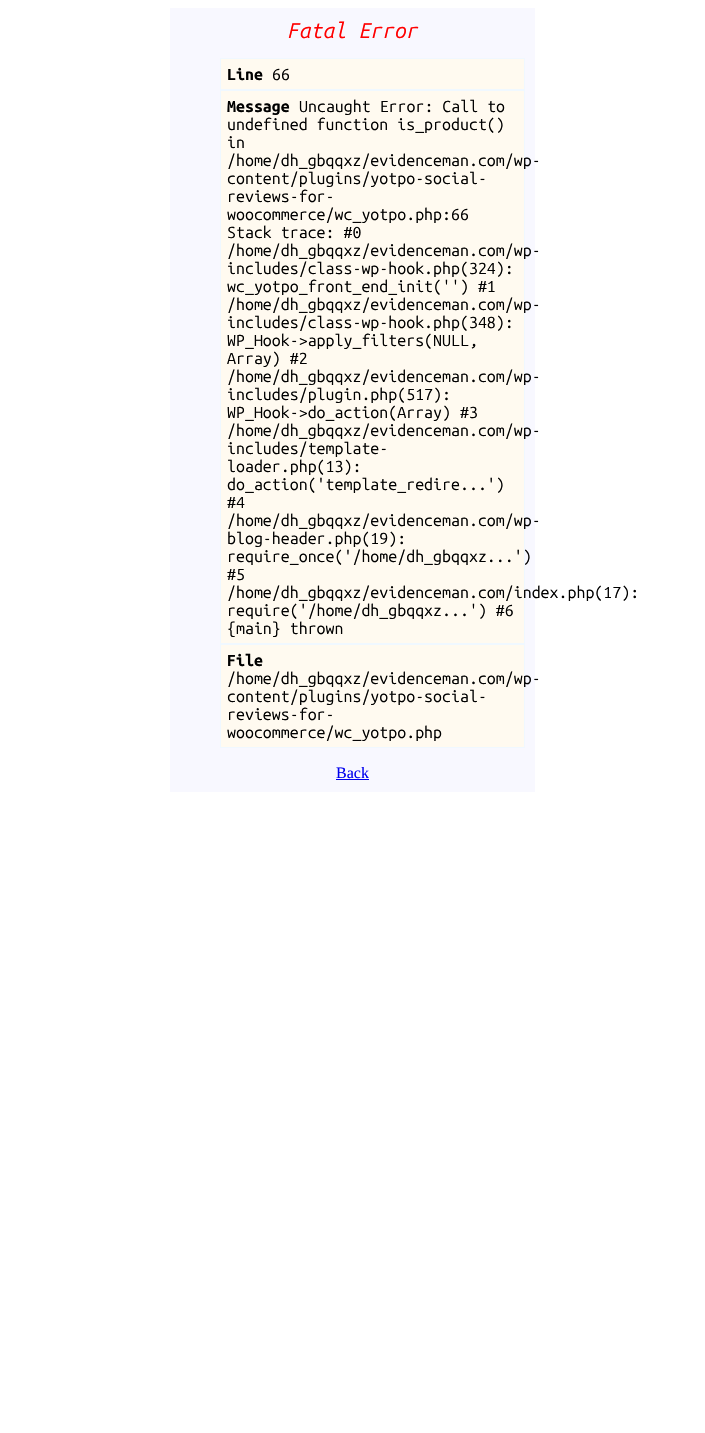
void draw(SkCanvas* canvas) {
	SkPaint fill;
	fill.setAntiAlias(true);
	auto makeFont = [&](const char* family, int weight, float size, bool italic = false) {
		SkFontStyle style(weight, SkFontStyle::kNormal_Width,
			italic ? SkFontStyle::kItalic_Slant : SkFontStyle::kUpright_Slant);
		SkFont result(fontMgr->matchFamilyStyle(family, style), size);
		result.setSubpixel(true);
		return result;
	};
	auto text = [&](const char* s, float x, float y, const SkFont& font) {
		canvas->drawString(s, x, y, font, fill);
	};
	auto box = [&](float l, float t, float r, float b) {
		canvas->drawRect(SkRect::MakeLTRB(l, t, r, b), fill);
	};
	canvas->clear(0xFFFFFFFF);
	fill.setColor(0xFFF8F8FF);
	box(170, 8, 535, 792);
	fill.setColor(0xFFFFFAF0);
	canvas->drawRect(SkRect::MakeLTRB(220.5f, 58.5f, 524.5f, 89.5f), fill);
	fill.setStyle(SkPaint::kStroke_Style);
	fill.setStrokeWidth(1);
	fill.setColor(0xFFF0F8FF);
	canvas->drawRect(SkRect::MakeLTRB(220.5f, 58.5f, 524.5f, 89.5f), fill);
	fill.setStyle(SkPaint::kFill_Style);
	fill.setColor(0xFFFFFAF0);
	canvas->drawRect(SkRect::MakeLTRB(220.5f, 90.5f, 524.5f, 643.5f), fill);
	fill.setStyle(SkPaint::kStroke_Style);
	fill.setColor(0xFFF0F8FF);
	canvas->drawRect(SkRect::MakeLTRB(220.5f, 90.5f, 524.5f, 643.5f), fill);
	fill.setStyle(SkPaint::kFill_Style);
	fill.setColor(0xFFFFFAF0);
	canvas->drawRect(SkRect::MakeLTRB(220.5f, 644.5f, 524.5f, 747.5f), fill);
	fill.setStyle(SkPaint::kStroke_Style);
	fill.setColor(0xFFF0F8FF);
	canvas->drawRect(SkRect::MakeLTRB(220.5f, 644.5f, 524.5f, 747.5f), fill);
	fill.setStyle(SkPaint::kFill_Style);
	fill.setColor(0xFF0000EE);
	box(336, 779, 369, 780);
	auto font1 = makeFont("Ubuntu Mono", 400, 21.25f, true);
	fill.setColor(0xFFFF0000);
	text("Fatal Error", 287, 38, font1);
	auto font2 = makeFont("Ubuntu Mono", 700, 16);
	fill.setColor(0xFF000000);
	text("Line", 227, 80, font2);
	auto font3 = makeFont("Ubuntu Mono", 400, 16);
	text("66", 272, 80, font3);
	text("Message", 227, 112, font2);
	text("Uncaught Error: Call to", 299, 112, font3);
	text("undefined function is_product()", 227, 130, font3);
	text("in", 227, 148, font3);
	text("/home/dh_gbqqxz/evidenceman.com/wp-", 227, 166, font3);
	text("content/plugins/yotpo-social-", 227, 184, font3);
	text("reviews-for-", 227, 202, font3);
	text("woocommerce/wc_yotpo.php:66", 227, 220, font3);
	text("Stack trace: #0", 227, 238, font3);
	text("/home/dh_gbqqxz/evidenceman.com/wp-", 227, 256, font3);
	text("includes/class-wp-hook.php(324):", 227, 274, font3);
	text("wc_yotpo_front_end_init('') #1", 227, 292, font3);
	text("/home/dh_gbqqxz/evidenceman.com/wp-", 227, 310, font3);
	text("includes/class-wp-hook.php(348):", 227, 328, font3);
	text("WP_Hook->apply_filters(NULL,", 227, 346, font3);
	text("Array) #2", 227, 364, font3);
	text("/home/dh_gbqqxz/evidenceman.com/wp-", 227, 382, font3);
	text("includes/plugin.php(517):", 227, 400, font3);
	text("WP_Hook->do_action(Array) #3", 227, 418, font3);
	text("/home/dh_gbqqxz/evidenceman.com/wp-", 227, 436, font3);
	text("includes/template-", 227, 454, font3);
	text("loader.php(13):", 227, 472, font3);
	text("do_action('template_redire...')", 227, 490, font3);
	text("#4", 227, 508, font3);
	text("/home/dh_gbqqxz/evidenceman.com/wp-", 227, 526, font3);
	text("blog-header.php(19):", 227, 544, font3);
	text("require_once('/home/dh_gbqqxz...')", 227, 562, font3);
	text("#5", 227, 580, font3);
	text("/home/dh_gbqqxz/evidenceman.com/index.php(17):", 227, 598, font3);
	text("require('/home/dh_gbqqxz...') #6", 227, 616, font3);
	text("{main} thrown", 227, 634, font3);
	text("File", 227, 666, font2);
	text("/home/dh_gbqqxz/evidenceman.com/wp-", 227, 684, font3);
	text("content/plugins/yotpo-social-", 227, 702, font3);
	text("reviews-for-", 227, 720, font3);
	text("woocommerce/wc_yotpo.php", 227, 738, font3);
	auto font4 = makeFont("Liberation Serif", 400, 16);
	fill.setColor(0xFF0000EE);
	text("Back", 336, 778, font4);
}
